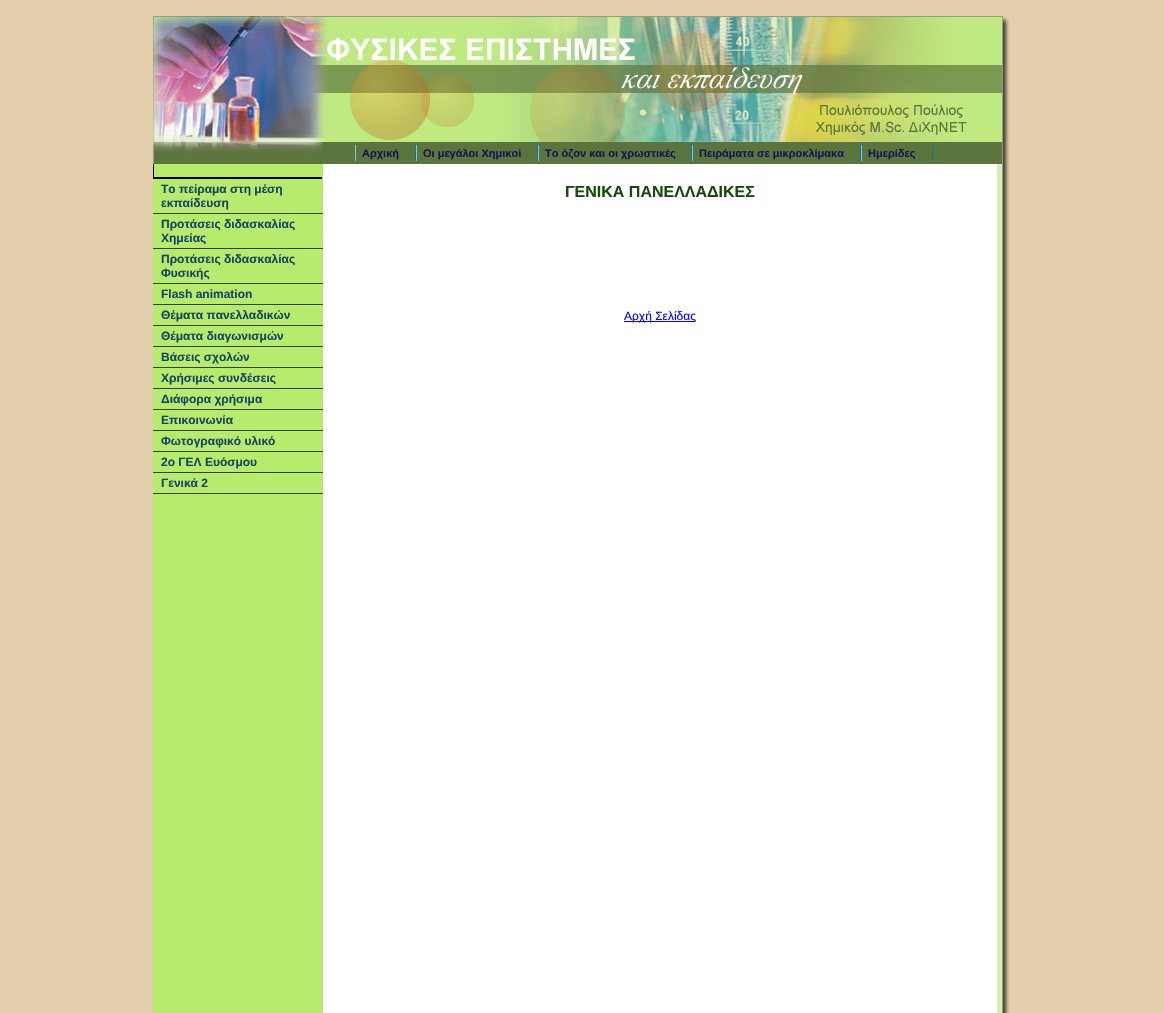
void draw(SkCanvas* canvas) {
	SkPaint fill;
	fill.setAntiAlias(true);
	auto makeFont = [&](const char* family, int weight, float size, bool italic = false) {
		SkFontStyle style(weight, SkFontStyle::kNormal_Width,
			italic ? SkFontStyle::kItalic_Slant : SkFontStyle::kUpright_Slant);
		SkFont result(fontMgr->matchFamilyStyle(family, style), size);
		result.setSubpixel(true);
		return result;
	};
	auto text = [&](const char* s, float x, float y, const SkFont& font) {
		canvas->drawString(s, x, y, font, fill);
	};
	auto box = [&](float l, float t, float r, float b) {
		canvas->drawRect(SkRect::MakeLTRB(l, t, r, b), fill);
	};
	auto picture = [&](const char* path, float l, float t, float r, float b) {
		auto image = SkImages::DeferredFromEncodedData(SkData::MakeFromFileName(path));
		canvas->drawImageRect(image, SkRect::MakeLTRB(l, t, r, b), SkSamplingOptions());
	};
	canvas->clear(0xFFE3CFAC);
	picture("image0.png", 153, 16, 323, 142);
	picture("image1.png", 323, 16, 997, 142);
	picture("image2.png", 997, 16, 1012, 142);
	picture("image3.png", 153, 142, 323, 164);
	fill.setColor(0xFF5C743D);
	box(323, 142, 997, 164);
	fill.setColor(0xFF0974A6);
	box(415, 145, 416, 161);
	fill.setColor(0xFF6ECBF5);
	box(355, 145, 356, 161);
	fill.setColor(0xFF0974A6);
	box(537, 145, 538, 161);
	fill.setColor(0xFF6ECBF5);
	box(416, 145, 417, 161);
	fill.setColor(0xFF0974A6);
	box(691, 145, 692, 161);
	fill.setColor(0xFF6ECBF5);
	box(538, 145, 539, 161);
	fill.setColor(0xFF0974A6);
	box(860, 145, 861, 161);
	fill.setColor(0xFF6ECBF5);
	box(692, 145, 693, 161);
	fill.setColor(0xFF0974A6);
	box(932, 145, 933, 161);
	fill.setColor(0xFF6ECBF5);
	box(861, 145, 862, 161);
	picture("image4.png", 997, 142, 1010, 164);
	fill.setColor(0xFFB7EB6C);
	box(153, 164, 323, 1013);
	fill.setColor(0xFF000000);
	box(153, 177, 322, 179);
	box(153, 164, 154, 179);
	fill.setColor(0xFF324315);
	box(153, 213, 323, 214);
	box(153, 248, 323, 249);
	box(153, 283, 323, 284);
	box(153, 304, 323, 305);
	box(153, 325, 323, 326);
	box(153, 346, 323, 347);
	box(153, 367, 323, 368);
	box(153, 388, 323, 389);
	box(153, 409, 323, 410);
	box(153, 430, 323, 431);
	box(153, 451, 323, 452);
	box(153, 472, 323, 473);
	box(153, 493, 323, 494);
	fill.setColor(0xFFFFFFFF);
	box(323, 164, 997, 1013);
	fill.setColor(0xFF0000FF);
	box(624, 321, 695, 322);
	picture("image5.png", 997, 164, 1010, 1013);
	auto font1 = makeFont("Liberation Sans", 700, 11);
	fill.setColor(0xFF141452);
	text("Αρχική", 362, 157, font1);
	text("Οι μεγάλοι Χημικοί", 423, 157, font1);
	text("Το όζον και οι χρωστικές", 545, 157, font1);
	text("Πειράματα σε μικροκλίμακα", 699, 157, font1);
	text("Ημερίδες", 868, 157, font1);
	auto font2 = makeFont("Liberation Sans", 700, 12);
	fill.setColor(0xFF174465);
	text("Το πείραμα στη μέση", 161, 193, font2);
	text("εκπαίδευση", 161, 207, font2);
	text("Προτάσεις διδασκαλίας", 161, 228, font2);
	text("Χημείας", 161, 242, font2);
	text("Προτάσεις διδασκαλίας", 161, 263, font2);
	text("Φυσικής", 161, 277, font2);
	text("Flash animation", 161, 298, font2);
	text("Θέματα πανελλαδικών", 161, 319, font2);
	text("Θέματα διαγωνισμών", 161, 340, font2);
	text("Βάσεις σχολών", 161, 361, font2);
	text("Χρήσιμες συνδέσεις", 161, 382, font2);
	text("Διάφορα χρήσιμα", 161, 403, font2);
	text("Επικοινωνία", 161, 424, font2);
	text("Φωτογραφικό υλικό", 161, 445, font2);
	text("2ο ΓΕΛ Ευόσμου", 161, 466, font2);
	text("Γενικά 2", 161, 487, font2);
	auto font3 = makeFont("Liberation Sans", 700, 16);
	fill.setColor(0xFF17490E);
	text("ΓΕΝΙΚΑ ΠΑΝΕΛΛΑΔΙΚΕΣ", 565, 197, font3);
	auto font4 = makeFont("Liberation Sans", 400, 12);
	fill.setColor(0xFF0000FF);
	text("Αρχή Σελίδας", 624, 320, font4);
}
